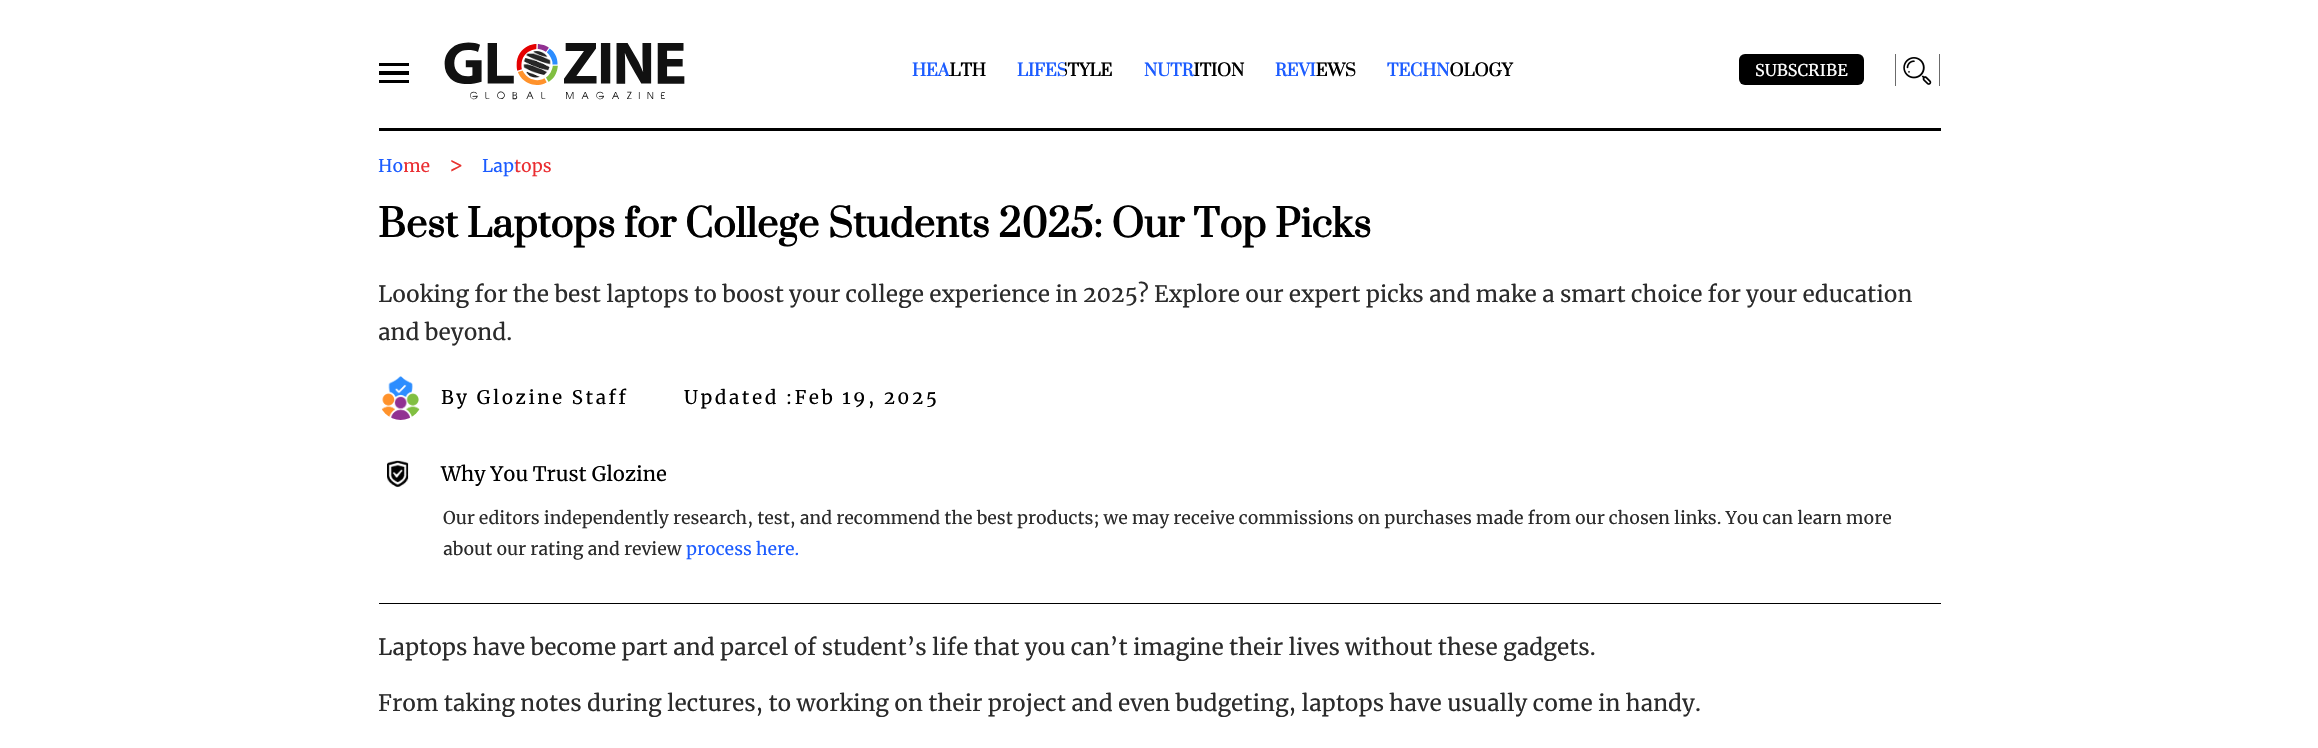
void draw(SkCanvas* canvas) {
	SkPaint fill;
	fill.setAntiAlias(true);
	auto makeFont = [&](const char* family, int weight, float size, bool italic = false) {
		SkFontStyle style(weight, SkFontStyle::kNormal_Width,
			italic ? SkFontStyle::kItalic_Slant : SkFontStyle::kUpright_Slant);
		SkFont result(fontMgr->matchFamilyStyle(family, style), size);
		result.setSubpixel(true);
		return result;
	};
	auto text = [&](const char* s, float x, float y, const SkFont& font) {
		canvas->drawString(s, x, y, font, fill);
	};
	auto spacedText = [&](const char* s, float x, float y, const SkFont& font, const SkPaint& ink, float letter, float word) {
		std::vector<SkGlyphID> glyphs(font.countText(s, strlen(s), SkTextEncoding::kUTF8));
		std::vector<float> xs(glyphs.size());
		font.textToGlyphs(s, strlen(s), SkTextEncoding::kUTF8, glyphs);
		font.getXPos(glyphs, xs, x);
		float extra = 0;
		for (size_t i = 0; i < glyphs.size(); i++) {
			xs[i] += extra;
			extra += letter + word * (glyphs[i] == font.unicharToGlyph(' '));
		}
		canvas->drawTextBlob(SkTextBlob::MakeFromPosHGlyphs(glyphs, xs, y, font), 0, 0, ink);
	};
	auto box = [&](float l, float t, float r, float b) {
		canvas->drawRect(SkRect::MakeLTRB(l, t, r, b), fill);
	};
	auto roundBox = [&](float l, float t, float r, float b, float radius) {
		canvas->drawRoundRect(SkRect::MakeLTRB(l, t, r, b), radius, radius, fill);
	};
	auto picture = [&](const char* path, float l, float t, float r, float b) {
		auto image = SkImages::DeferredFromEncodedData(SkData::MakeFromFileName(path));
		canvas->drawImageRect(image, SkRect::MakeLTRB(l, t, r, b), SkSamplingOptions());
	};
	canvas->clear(0xFFFFFFFF);
	fill.setColor(0xFF000000);
	box(379, 128, 1941, 131);
	box(379, 63, 409, 66);
	box(379, 71, 409, 75);
	box(379, 80, 409, 83);
	picture("image0.png", 444, 42, 685, 100);
	roundBox(1739, 54, 1864, 85, 6);
	fill.setColor(0xFF6B6B6B);
	box(1939, 54, 1940, 86);
	box(1895, 54, 1896, 86);
	picture("image1.png", 1903, 57, 1932, 85);
	fill.setColor(0xFF000000);
	box(379, 603, 1941, 604);
	picture("image2.png", 381, 376, 420, 420);
	picture("image3.png", 387, 460, 409, 488);
	auto font1 = makeFont("Prata", 700, 16.25f);
	{
		const SkColor colors[] = {0xFF1C5CFF, 0xFF1C5CFF, 0xFF000000};
		const float stops[] = {0, 0.5f, 0.5f};
		const SkPoint ends[] = {{912, 71}, {986, 71}};
		fill.setShader(SkGradientShader::MakeLinear(ends, colors, stops, 3, SkTileMode::kClamp));
		fill.setAlpha(255);
	}
	text("HEALTH", 912, 76, font1);
	{
		const SkColor colors[] = {0xFF1C5CFF, 0xFF1C5CFF, 0xFF000000};
		const float stops[] = {0, 0.5f, 0.5f};
		const SkPoint ends[] = {{1017, 71}, {1113, 71}};
		fill.setShader(SkGradientShader::MakeLinear(ends, colors, stops, 3, SkTileMode::kClamp));
		fill.setAlpha(255);
	}
	text("LIFESTYLE", 1017, 76, font1);
	{
		const SkColor colors[] = {0xFF1C5CFF, 0xFF1C5CFF, 0xFF000000};
		const float stops[] = {0, 0.5f, 0.5f};
		const SkPoint ends[] = {{1144, 71}, {1244, 71}};
		fill.setShader(SkGradientShader::MakeLinear(ends, colors, stops, 3, SkTileMode::kClamp));
		fill.setAlpha(255);
	}
	text("NUTRITION", 1144, 76, font1);
	{
		const SkColor colors[] = {0xFF1C5CFF, 0xFF1C5CFF, 0xFF000000};
		const float stops[] = {0, 0.5f, 0.5f};
		const SkPoint ends[] = {{1275, 71}, {1356, 71}};
		fill.setShader(SkGradientShader::MakeLinear(ends, colors, stops, 3, SkTileMode::kClamp));
		fill.setAlpha(255);
	}
	text("REVIEWS", 1275, 76, font1);
	{
		const SkColor colors[] = {0xFF1C5CFF, 0xFF1C5CFF, 0xFF000000};
		const float stops[] = {0, 0.5f, 0.5f};
		const SkPoint ends[] = {{1387, 71}, {1513, 71}};
		fill.setShader(SkGradientShader::MakeLinear(ends, colors, stops, 3, SkTileMode::kClamp));
		fill.setAlpha(255);
	}
	text("TECHNOLOGY", 1387, 76, font1);
	auto font2 = makeFont("Merriweather", 400, 16.25f);
	fill.setShader(nullptr);
	fill.setColor(0xFFFFFFFF);
	text("SUBSCRIBE", 1755, 76, font2);
	auto font3 = makeFont("Merriweather", 400, 17.5f);
	{
		const SkColor colors[] = {0xFF1C5CFF, 0xFF1C5CFF, 0xFFEA2D31};
		const float stops[] = {0, 0.5f, 0.5f};
		const SkPoint ends[] = {{378, 166}, {430, 166}};
		fill.setShader(SkGradientShader::MakeLinear(ends, colors, stops, 3, SkTileMode::kClamp));
		fill.setAlpha(255);
	}
	text("Home", 378, 172, font3);
	auto font4 = makeFont("Merriweather", 400, 21);
	fill.setShader(nullptr);
	fill.setColor(0xFFE8322E);
	text(">", 449, 172, font4);
	{
		const SkColor colors[] = {0xFF1C5CFF, 0xFF1C5CFF, 0xFFEA2D31};
		const float stops[] = {0, 0.5f, 0.5f};
		const SkPoint ends[] = {{482, 166}, {551, 166}};
		fill.setShader(SkGradientShader::MakeLinear(ends, colors, stops, 3, SkTileMode::kClamp));
		fill.setAlpha(255);
	}
	text("Laptops", 482, 172, font3);
	auto font5 = makeFont("Prata", 700, 37.5f);
	fill.setShader(nullptr);
	fill.setColor(0xFF000000);
	text("Best Laptops for College Students 2025: Our Top Picks", 378, 237, font5);
	auto font6 = makeFont("Merriweather", 400, 22.5f);
	fill.setColor(0xFF2B2B2B);
	text("Looking for the best laptops to boost your college experience in 2025? Explore our expert picks and make a smart choice for your education", 378, 302, font6);
	text("and beyond.", 378, 340, font6);
	auto font7 = makeFont("Merriweather", 400, 18.75f);
	fill.setColor(0xFF000000);
	spacedText("By Glozine Staff", 441, 404, font7, fill, 2.5f, 0);
	spacedText("Updated :Feb 19, 2025", 684, 404, font7, fill, 2.5f, 0);
	auto font8 = makeFont("Merriweather", 400, 20);
	text("Why You Trust Glozine", 441, 481, font8);
	fill.setColor(0xFF2B2B2B);
	text("Our editors independently research, test, and recommend the best products; we may receive commissions on purchases made from our chosen links. You can learn more", 443, 524, font3);
	text("about our rating and review", 443, 555, font3);
	fill.setColor(0xFF1C5CFF);
	text("process here.", 686, 555, font3);
	fill.setColor(0xFF2B2B2B);
	text("Laptops have become part and parcel of student’s life that you can’t imagine their lives without these gadgets.", 378, 655, font6);
	text("From taking notes during lectures, to working on their project and even budgeting, laptops have usually come in handy.", 378, 711, font6);
}
